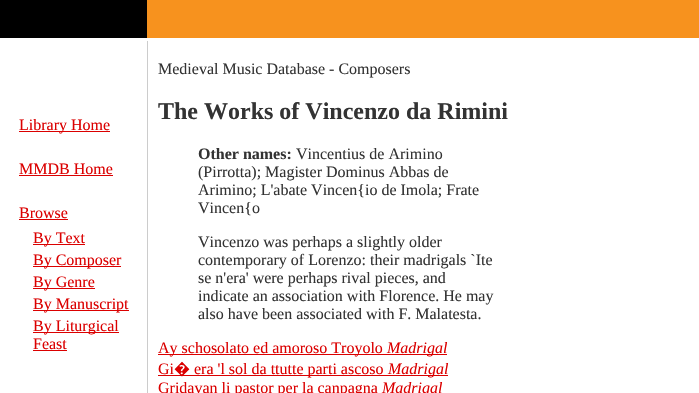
void draw(SkCanvas* canvas) {
	SkPaint fill;
	fill.setAntiAlias(true);
	auto makeFont = [&](const char* family, int weight, float size, bool italic = false) {
		SkFontStyle style(weight, SkFontStyle::kNormal_Width,
			italic ? SkFontStyle::kItalic_Slant : SkFontStyle::kUpright_Slant);
		SkFont result(fontMgr->matchFamilyStyle(family, style), size);
		result.setSubpixel(true);
		return result;
	};
	auto text = [&](const char* s, float x, float y, const SkFont& font) {
		canvas->drawString(s, x, y, font, fill);
	};
	auto box = [&](float l, float t, float r, float b) {
		canvas->drawRect(SkRect::MakeLTRB(l, t, r, b), fill);
	};
	canvas->clear(0xFFFFFFFF);
	fill.setColor(0xFF000000);
	box(0, 0, 147, 38);
	fill.setColor(0xFFF7921E);
	box(147, 0, 699, 38);
	fill.setColor(0xFFDB0000);
	box(19, 131, 110, 132);
	box(19, 175, 113, 176);
	box(19, 219, 68, 220);
	box(33, 244, 85, 245);
	box(33, 266, 121, 267);
	box(33, 288, 95, 289);
	box(33, 310, 129, 311);
	box(33, 332, 119, 333);
	box(33, 350, 67, 351);
	fill.setColor(0xFFCCCCCC);
	box(147, 41, 148, 393);
	fill.setColor(0xFFDB0000);
	box(158, 354, 447, 355);
	box(158, 375, 448, 376);
	auto font1 = makeFont("Liberation Serif", 400, 16);
	text("Library Home", 19, 130, font1);
	text("MMDB Home", 19, 174, font1);
	text("Browse", 19, 218, font1);
	text("By Text", 33, 243, font1);
	text("By Composer", 33, 265, font1);
	text("By Genre", 33, 287, font1);
	text("By Manuscript", 33, 309, font1);
	text("By Liturgical", 33, 331, font1);
	text("Feast", 33, 349, font1);
	fill.setColor(0xFF333333);
	text("Medieval Music Database - Composers", 158, 74, font1);
	auto font2 = makeFont("Liberation Serif", 700, 24);
	text("The Works of Vincenzo da Rimini", 158, 119, font2);
	auto font3 = makeFont("Liberation Serif", 700, 16);
	text("Other names:", 198, 159, font3);
	text("Vincentius de Arimino", 296, 159, font1);
	text("(Pirrotta); Magister Dominus Abbas de", 198, 177, font1);
	text("Arimino; L'abate Vincen{io de Imola; Frate", 198, 195, font1);
	text("Vincen{o", 198, 213, font1);
	text("Vincenzo was perhaps a slightly older", 198, 247, font1);
	text("contemporary of Lorenzo: their madrigals `Ite", 198, 265, font1);
	text("se n'era' were perhaps rival pieces, and", 198, 283, font1);
	text("indicate an association with Florence. He may", 198, 301, font1);
	text("also have been associated with F. Malatesta.", 198, 319, font1);
	fill.setColor(0xFFDB0000);
	text("Ay schosolato ed amoroso Troyolo", 158, 353, font1);
	auto font4 = makeFont("Liberation Serif", 400, 16, true);
	text("Madrigal", 387, 353, font4);
	text("Gi", 158, 374, font1);
	auto font5 = makeFont("Noto Sans", 400, 16);
	text("�", 174, 374, font5);
	text("era 'l sol da ttutte parti ascoso", 194, 374, font1);
	text("Madrigal", 388, 374, font4);
	text("Gridavan li pastor per la canpagna", 158, 393, font1);
	text("Madrigal", 382, 393, font4);
}
